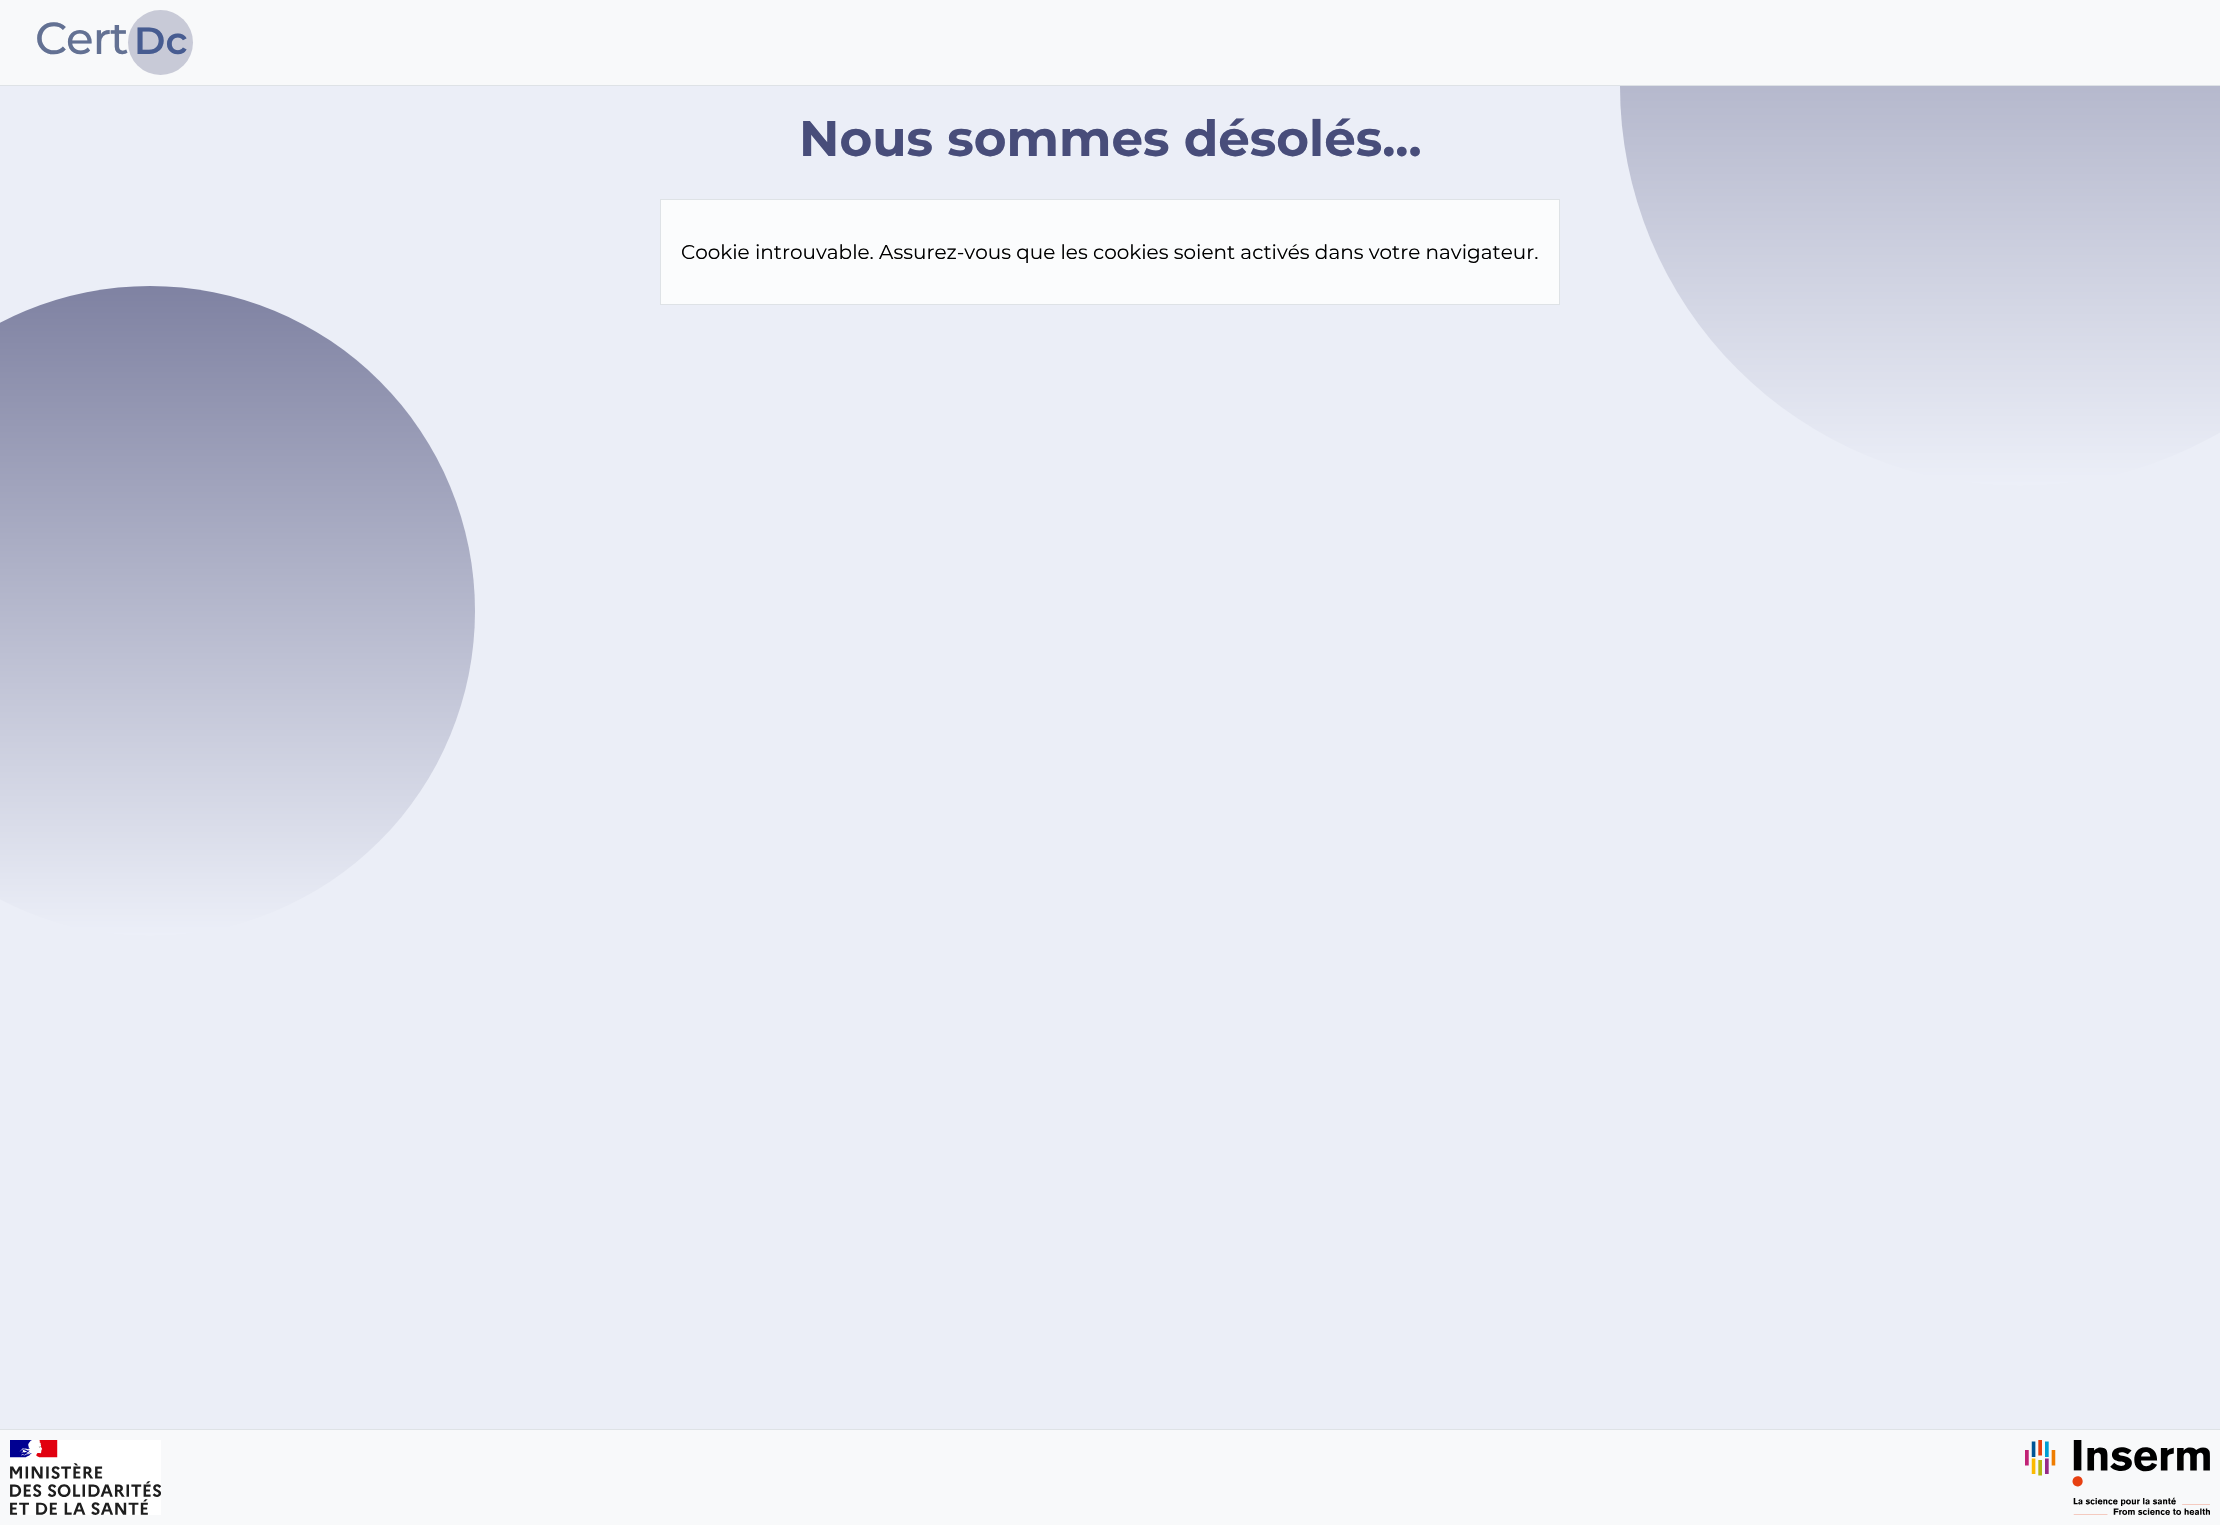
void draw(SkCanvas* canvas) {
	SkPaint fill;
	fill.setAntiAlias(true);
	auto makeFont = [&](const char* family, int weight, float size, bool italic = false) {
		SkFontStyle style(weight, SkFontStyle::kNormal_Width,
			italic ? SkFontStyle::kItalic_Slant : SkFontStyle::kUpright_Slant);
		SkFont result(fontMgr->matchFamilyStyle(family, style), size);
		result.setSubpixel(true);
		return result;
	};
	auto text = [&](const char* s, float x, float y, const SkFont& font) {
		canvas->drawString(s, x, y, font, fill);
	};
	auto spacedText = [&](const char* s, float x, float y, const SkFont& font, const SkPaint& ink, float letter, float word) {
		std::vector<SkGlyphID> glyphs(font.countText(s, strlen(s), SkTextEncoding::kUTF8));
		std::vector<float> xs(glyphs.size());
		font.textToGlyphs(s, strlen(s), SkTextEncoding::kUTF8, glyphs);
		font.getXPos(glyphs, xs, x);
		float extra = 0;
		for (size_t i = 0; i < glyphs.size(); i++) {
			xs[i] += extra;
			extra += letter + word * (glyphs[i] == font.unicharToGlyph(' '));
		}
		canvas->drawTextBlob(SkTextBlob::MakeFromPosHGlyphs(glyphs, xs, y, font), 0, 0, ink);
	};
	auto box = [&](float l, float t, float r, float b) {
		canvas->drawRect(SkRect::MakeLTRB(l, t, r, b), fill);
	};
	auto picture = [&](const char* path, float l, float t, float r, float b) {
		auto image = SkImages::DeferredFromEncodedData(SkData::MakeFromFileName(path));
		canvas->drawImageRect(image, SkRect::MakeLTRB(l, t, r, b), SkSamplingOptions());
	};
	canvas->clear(0xFFF8F9FA);
	fill.setColor(0xFFDEE2E6);
	box(0, 85, 2220, 86);
	fill.setColor(0xFFC8CAD7);
	canvas->drawCircle(160.5f, 42.5f, 32.5f, fill);
	fill.setColor(0xFFEBEEF7);
	box(0, 86, 2220, 1429);
	canvas->save();
	canvas->clipRect(SkRect::MakeLTRB(1620, 86, 2220, 486));
	{
		const SkColor colors[] = {0xFF7F82A2, 0xFFECEFF8};
		const float stops[] = {0, 1};
		const SkPoint ends[] = {{1620, -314}, {1620, 486}};
		fill.setShader(SkGradientShader::MakeLinear(ends, colors, stops, 2, SkTileMode::kClamp));
		fill.setAlpha(255);
	}
	canvas->drawCircle(2020, 86, 400, fill);
	canvas->restore();
	{
		const SkColor colors[] = {0xFF7F82A2, 0xFFECEFF8};
		const float stops[] = {0, 1};
		const SkPoint ends[] = {{-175, 286}, {-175, 936}};
		fill.setShader(SkGradientShader::MakeLinear(ends, colors, stops, 2, SkTileMode::kClamp));
		fill.setAlpha(255);
	}
	canvas->drawCircle(150, 611, 325, fill);
	fill.setStyle(SkPaint::kStroke_Style);
	fill.setStrokeWidth(1);
	fill.setShader(nullptr);
	fill.setColor(0xFFDEE2E6);
	canvas->drawRect(SkRect::MakeLTRB(660.5f, 199.5f, 1559.5f, 304.5f), fill);
	fill.setStyle(SkPaint::kFill_Style);
	fill.setColor(0xFFFBFCFD);
	box(661, 200, 1559, 304);
	fill.setColor(0xFFDEE2E6);
	box(0, 1429, 2220, 1430);
	picture("image0.png", 10, 1440, 161, 1515);
	picture("image1.png", 2025, 1440, 2210, 1515);
	auto font1 = makeFont("Montserrat", 500, 45);
	fill.setColor(0xFF637193);
	spacedText("Cert", 35, 54, font1, fill, -1, 0);
	auto font2 = makeFont("Montserrat", 600, 38);
	fill.setColor(0xFF475C91);
	text("Dc", 134, 54, font2);
	auto font3 = makeFont("Montserrat", 700, 50);
	fill.setColor(0xFF484D7A);
	text("Nous sommes désolés...", 799, 156, font3);
	auto font4 = makeFont("Montserrat", 400, 20);
	fill.setColor(0xFF000000);
	text("Cookie introuvable. Assurez-vous que les cookies soient activés dans votre navigateur.", 681, 259, font4);
}
